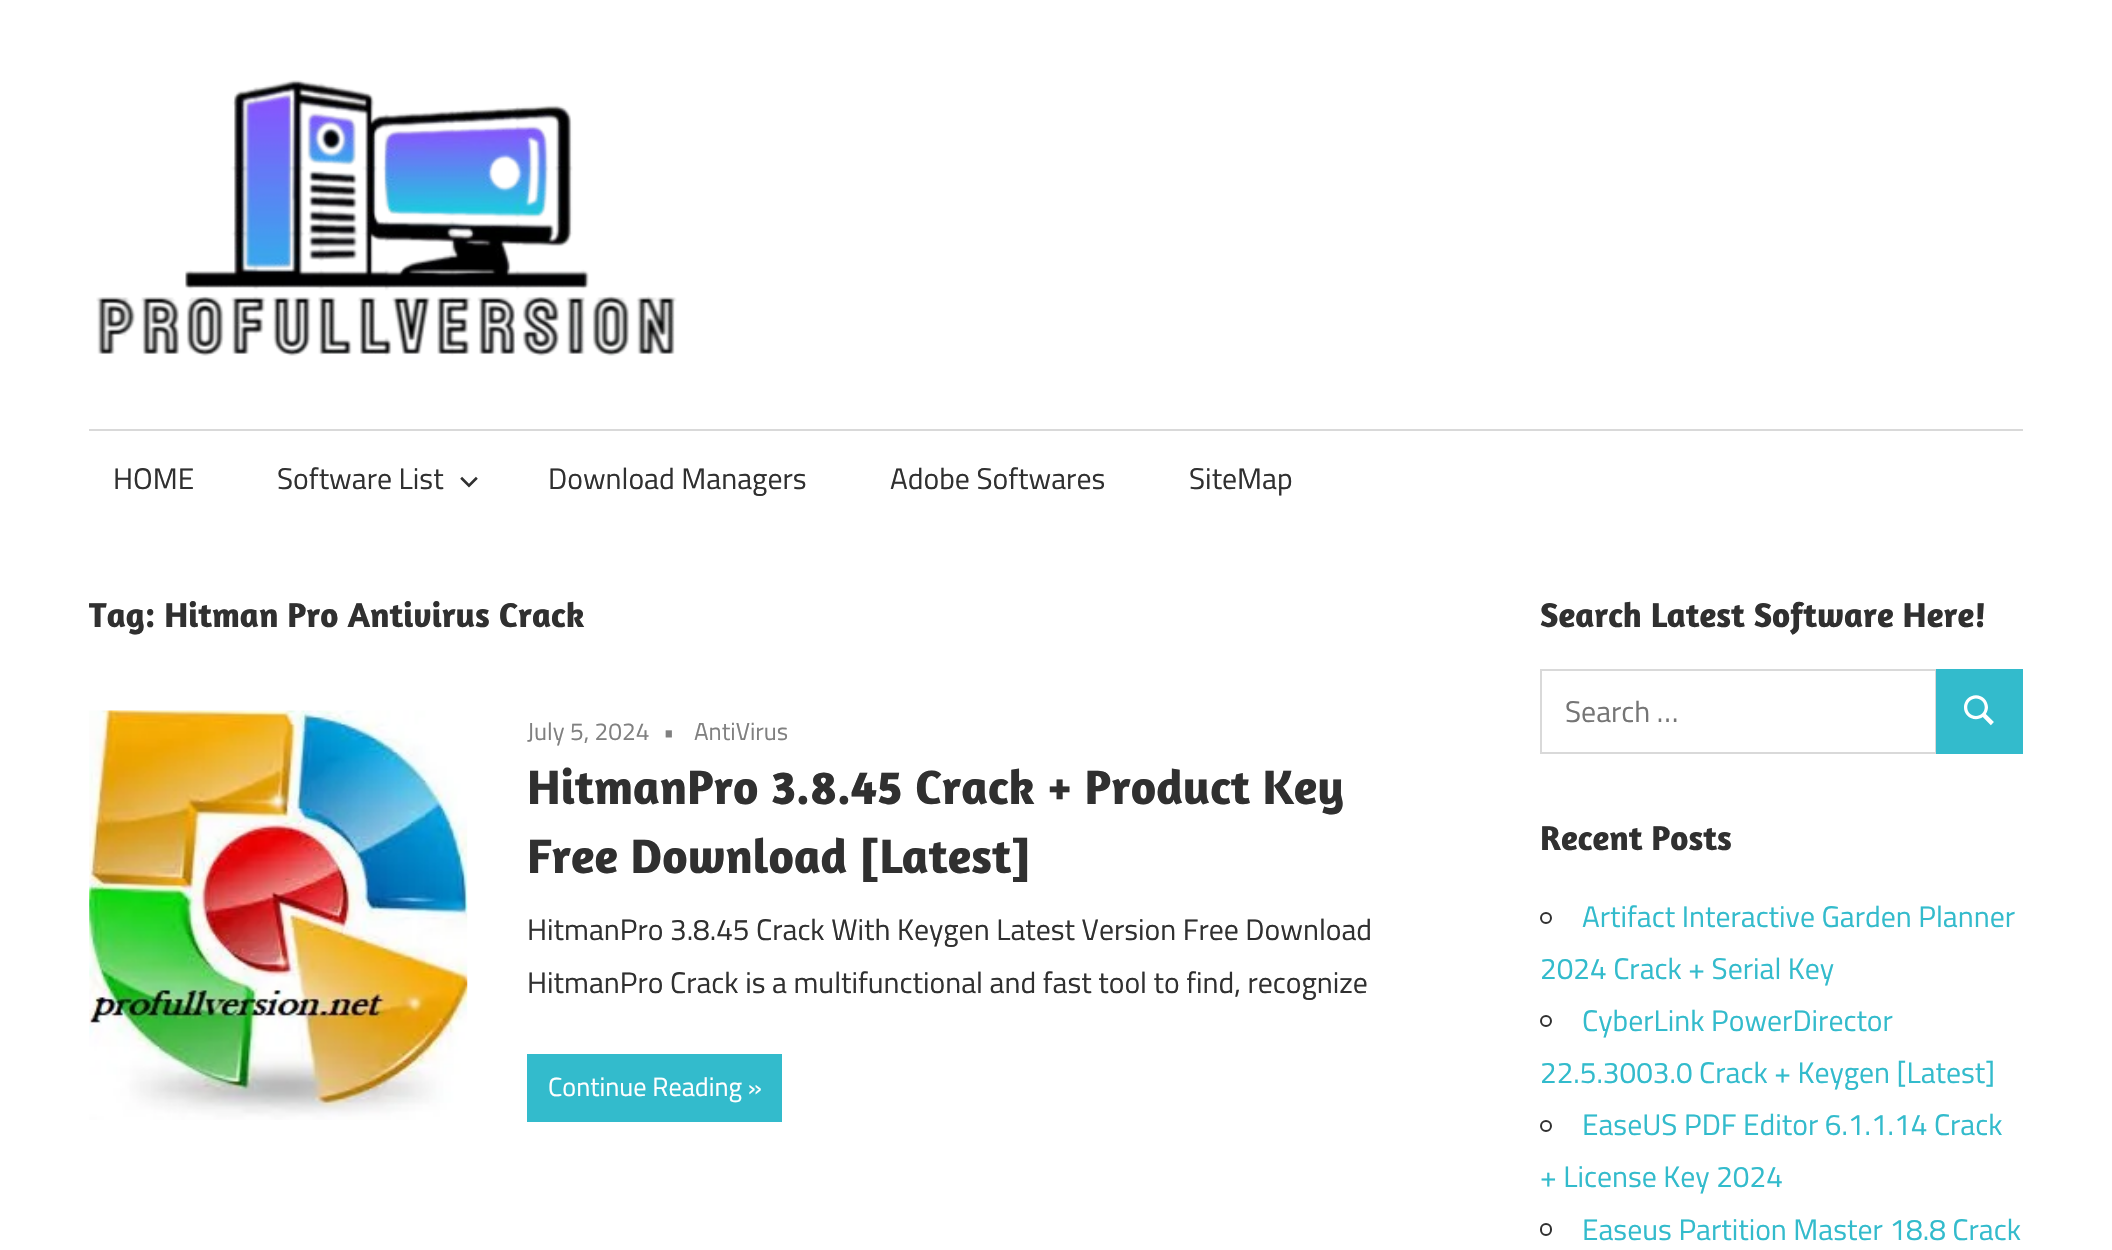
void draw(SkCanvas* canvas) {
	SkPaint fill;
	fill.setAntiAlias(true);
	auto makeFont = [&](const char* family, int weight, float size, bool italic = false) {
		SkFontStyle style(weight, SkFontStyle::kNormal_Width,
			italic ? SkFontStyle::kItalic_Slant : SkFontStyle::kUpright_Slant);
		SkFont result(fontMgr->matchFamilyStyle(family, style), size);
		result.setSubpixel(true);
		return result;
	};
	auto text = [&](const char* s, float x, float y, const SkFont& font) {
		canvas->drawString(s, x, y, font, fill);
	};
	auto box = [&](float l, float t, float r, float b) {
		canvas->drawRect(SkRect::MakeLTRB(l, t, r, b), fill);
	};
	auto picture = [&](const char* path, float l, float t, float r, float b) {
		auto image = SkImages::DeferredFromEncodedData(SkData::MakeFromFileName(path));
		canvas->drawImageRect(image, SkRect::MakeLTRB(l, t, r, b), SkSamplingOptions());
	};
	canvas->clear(0xFFFFFFFF);
	picture("image0.png", 96, 80, 677, 356);
	fill.setColor(0xFFD9D9D9);
	box(89, 429, 2023, 431);
	picture("image1.png", 460, 476, 478, 488);
	picture("image2.png", 89, 710, 468, 1120);
	fill.setColor(0xFF33BBCC);
	box(527, 1054, 782, 1122);
	fill.setStyle(SkPaint::kStroke_Style);
	fill.setStrokeWidth(2);
	fill.setColor(0xFFD9D9D9);
	canvas->drawRect(SkRect::MakeLTRB(1541, 670, 1936, 753), fill);
	fill.setStyle(SkPaint::kFill_Style);
	fill.setColor(0xFF33BBCC);
	box(1936, 669, 2023, 754);
	picture("image3.png", 1964, 695, 1994, 726);
	fill.setStyle(SkPaint::kStroke_Style);
	fill.setColor(0xFF303030);
	canvas->drawCircle(1546, 918, 5, fill);
	canvas->drawCircle(1546, 1021, 5, fill);
	canvas->drawCircle(1546, 1126, 5, fill);
	canvas->drawRoundRect(SkRect::MakeLTRB(1541, 1224, 1551, 1235), 5, 5, fill);
	auto font1 = makeFont("Titillium Web", 400, 29.75f);
	fill.setStyle(SkPaint::kFill_Style);
	text("HOME", 113, 489, font1);
	text("Software List", 277, 489, font1);
	text("Download Managers", 548, 489, font1);
	text("Adobe Softwares", 890, 489, font1);
	text("SiteMap", 1189, 489, font1);
	auto font2 = makeFont("Amaranth", 700, 35);
	text("Tag: Hitman Pro Antivirus Crack", 89, 627, font2);
	auto font3 = makeFont("Titillium Web", 400, 24.5f);
	fill.setColor(0xFF808080);
	text("July 5, 2024", 527, 740, font3);
	text("•", 663, 740, font3);
	text("AntiVirus", 694, 740, font3);
	auto font4 = makeFont("Amaranth", 700, 49);
	fill.setColor(0xFF303030);
	text("HitmanPro 3.8.45 Crack + Product Key", 527, 804, font4);
	text("Free Download [Latest]", 527, 873, font4);
	text("HitmanPro 3.8.45 Crack With Keygen Latest Version Free Download", 527, 940, font1);
	text("HitmanPro Crack is a multifunctional and fast tool to find, recognize", 527, 993, font1);
	auto font5 = makeFont("Titillium Web", 400, 26.25f);
	fill.setColor(0xFFFFFFFF);
	text("Continue Reading »", 548, 1096, font5);
	fill.setColor(0xFF303030);
	text("Search Latest Software Here!", 1540, 627, font2);
	fill.setColor(0xFF757575);
	text("Search …", 1565, 722, font1);
	fill.setColor(0xFF303030);
	text("Recent Posts", 1540, 850, font2);
	fill.setColor(0xFF33BBCC);
	text("Artifact Interactive Garden Planner", 1582, 927, font1);
	text("2024 Crack + Serial Key", 1540, 979, font1);
	text("CyberLink PowerDirector", 1582, 1031, font1);
	text("22.5.3003.0 Crack + Keygen [Latest]", 1540, 1083, font1);
	text("EaseUS PDF Editor 6.1.1.14 Crack", 1582, 1135, font1);
	text("+ License Key 2024", 1540, 1187, font1);
	text("Easeus Partition Master 18.8 Crack", 1582, 1240, font1);
}
